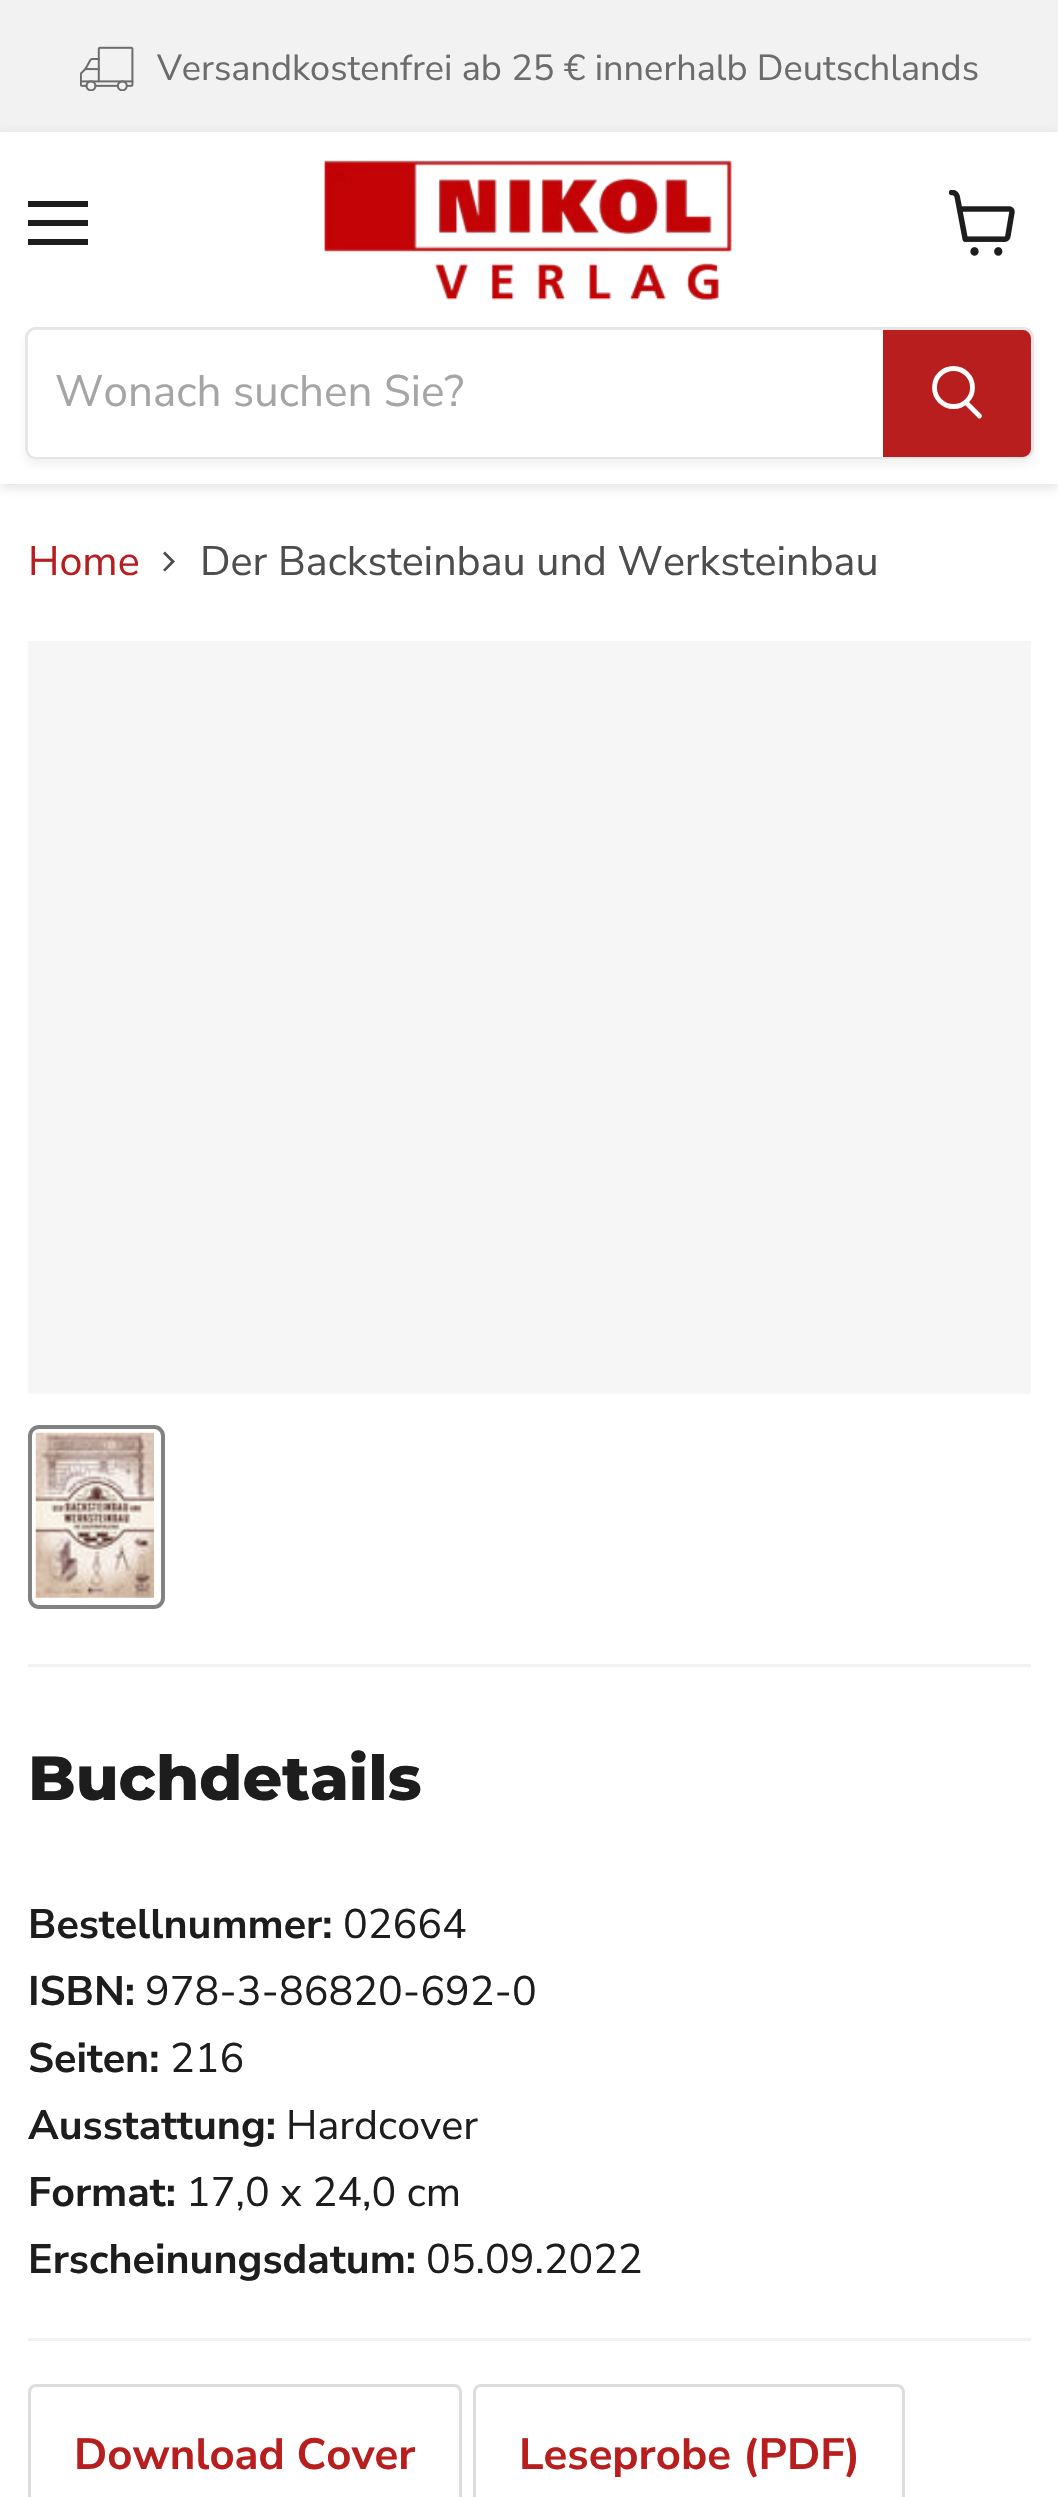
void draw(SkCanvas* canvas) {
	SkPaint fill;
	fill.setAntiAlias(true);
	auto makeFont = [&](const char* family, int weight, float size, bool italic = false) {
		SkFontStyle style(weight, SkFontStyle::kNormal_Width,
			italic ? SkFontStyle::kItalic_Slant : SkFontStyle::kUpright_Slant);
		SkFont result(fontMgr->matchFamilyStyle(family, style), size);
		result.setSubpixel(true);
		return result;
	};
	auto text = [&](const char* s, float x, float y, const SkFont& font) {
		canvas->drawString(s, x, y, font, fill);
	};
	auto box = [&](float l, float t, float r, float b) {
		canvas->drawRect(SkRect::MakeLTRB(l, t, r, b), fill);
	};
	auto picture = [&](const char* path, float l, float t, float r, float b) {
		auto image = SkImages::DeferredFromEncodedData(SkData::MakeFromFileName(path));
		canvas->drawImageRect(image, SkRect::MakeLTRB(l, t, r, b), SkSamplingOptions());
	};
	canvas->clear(0xFFFFFFFF);
	fill.setColor(0xFFF2F2F2);
	box(0, 0, 1058, 132);
	picture("image0.png", 80, 46, 134, 91);
	canvas->save();
	canvas->clipPath(SkPathBuilder(SkPathFillType::kEvenOdd).moveTo(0, 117).lineTo(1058, 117).lineTo(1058, 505).lineTo(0, 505).close().moveTo(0, 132).lineTo(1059, 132).lineTo(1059, 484).lineTo(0, 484).close().detach(), true);
	fill.setColor(0x40808080);
	fill.setMaskFilter(SkMaskFilter::MakeBlur(kNormal_SkBlurStyle, 5.5f));
	canvas->drawRect(SkRect::MakeLTRB(0, 135, 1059, 487), fill);
	fill.setMaskFilter(nullptr);
	canvas->restore();
	fill.setColor(0xFF1D1D1D);
	box(28, 201, 88, 207);
	box(28, 220, 88, 226);
	box(28, 239, 88, 245);
	picture("image1.png", 949, 190, 1015, 256);
	picture("image2.png", 324, 160, 732, 300);
	fill.setColor(0x1C808080);
	fill.setMaskFilter(SkMaskFilter::MakeBlur(kNormal_SkBlurStyle, 4));
	canvas->drawRoundRect(SkRect::MakeLTRB(25, 333, 1034, 465), 11, 11, fill);
	fill.setMaskFilter(nullptr);
	fill.setStyle(SkPaint::kStroke_Style);
	fill.setStrokeWidth(3);
	fill.setColor(0xFFE6E6E6);
	canvas->drawRoundRect(SkRect::MakeLTRB(26.5f, 328.5f, 1032.5f, 457.5f), 9.5f, 9.5f, fill);
	fill.setStyle(SkPaint::kFill_Style);
	fill.setColor(0xFFFFFFFF);
	canvas->drawPath(SkPathBuilder().moveTo(36, 330).lineTo(883, 330).lineTo(883, 457).lineTo(36, 457).cubicTo(31.5f, 457, 28, 453.5f, 28, 449).lineTo(28, 338).cubicTo(28, 333.5f, 31.5f, 330, 36, 330).close().detach(), fill);
	fill.setColor(0xFFB81E1E);
	canvas->drawPath(SkPathBuilder().moveTo(884.5f, 331.5f).lineTo(1023, 331.5f).cubicTo(1026.5f, 331.5f, 1029.5f, 334.5f, 1029.5f, 338).lineTo(1029.5f, 449).cubicTo(1029.5f, 452.5f, 1026.5f, 455.5f, 1023, 455.5f).lineTo(884.5f, 455.5f).close().detach(), fill);
	fill.setStyle(SkPaint::kStroke_Style);
	canvas->drawPath(SkPathBuilder().moveTo(884.5f, 331.5f).lineTo(1023, 331.5f).cubicTo(1026.5f, 331.5f, 1029.5f, 334.5f, 1029.5f, 338).lineTo(1029.5f, 449).cubicTo(1029.5f, 452.5f, 1026.5f, 455.5f, 1023, 455.5f).lineTo(884.5f, 455.5f).close().detach(), fill);
	fill.setStrokeWidth(4.8f);
	fill.setStrokeCap(SkPaint::kRound_Cap);
	fill.setColor(0xFFFFFFFF);
	canvas->drawPath(SkPathBuilder().moveTo(979.5f, 416).lineTo(966.5f, 403).detach(), fill);
	fill.setStrokeCap(SkPaint::kButt_Cap);
	canvas->drawCircle(953.5f, 387.5f, 19, fill);
	fill.setStyle(SkPaint::kFill_Style);
	fill.setColor(0xFF4D4D4D);
	canvas->drawPath(SkPathBuilder(SkPathFillType::kEvenOdd).moveTo(163, 570).lineTo(165, 571.5f).lineTo(175, 561.5f).lineTo(165, 551.5f).lineTo(163, 553.5f).lineTo(171, 561.5f).close().detach(), fill);
	fill.setColor(0xFFF6F6F6);
	box(28, 641, 1031, 1394);
	fill.setStyle(SkPaint::kStroke_Style);
	fill.setStrokeWidth(4);
	fill.setColor(0xFF818181);
	canvas->drawRoundRect(SkRect::MakeLTRB(30, 1427, 163, 1607), 9, 9, fill);
	picture("image3.png", 35, 1432, 154, 1598);
	fill.setStyle(SkPaint::kFill_Style);
	fill.setColor(0xFFF2F2F2);
	box(28, 1664, 1031, 1667);
	box(28, 2338, 1031, 2341);
	fill.setStyle(SkPaint::kStroke_Style);
	fill.setStrokeWidth(3);
	fill.setColor(0xFFDDDDDD);
	canvas->drawRoundRect(SkRect::MakeLTRB(29.5f, 2385.5f, 460.5f, 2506.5f), 6.5f, 6.5f, fill);
	canvas->drawRoundRect(SkRect::MakeLTRB(474.5f, 2385.5f, 903.5f, 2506.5f), 6.5f, 6.5f, fill);
	auto font1 = makeFont("Nunito Sans", 400, 36.1f);
	fill.setStyle(SkPaint::kFill_Style);
	fill.setColor(0xFF6C6C6C);
	text("Versandkostenfrei ab 25 € innerhalb Deutschlands", 157, 80, font1);
	auto font2 = makeFont("Nunito Sans", 400, 44);
	fill.setColor(0xFFA5A5A5);
	text("Wonach suchen Sie?", 55, 406, font2);
	auto font3 = makeFont("Nunito Sans", 400, 41.25f);
	fill.setColor(0xFFB81E1E);
	text("Home", 28, 575, font3);
	fill.setColor(0xFF4D4D4D);
	text("Der Backsteinbau und Werksteinbau", 200, 575, font3);
	auto font4 = makeFont("Montserrat", 800, 62);
	fill.setColor(0xFF1D1D1D);
	text("Buchdetails", 28, 1800, font4);
	auto font5 = makeFont("Nunito Sans", 700, 41.25f);
	text("Bestellnummer:", 28, 1938, font5);
	text("02664", 343, 1938, font3);
	text("ISBN:", 28, 2005, font5);
	text("978-3-86820-692-0", 145, 2005, font3);
	text("Seiten:", 28, 2072, font5);
	text("216", 170, 2072, font3);
	text("Ausstattung:", 28, 2139, font5);
	text("Hardcover", 286, 2139, font3);
	text("Format:", 28, 2206, font5);
	text("17,0 x 24,0 cm", 186, 2206, font3);
	text("Erscheinungsdatum:", 28, 2273, font5);
	text("05.09.2022", 426, 2273, font3);
	auto font6 = makeFont("Nunito Sans", 700, 43.75f);
	fill.setColor(0xFFB81E1E);
	text("Download Cover", 74, 2469, font6);
	text("Leseprobe (PDF)", 519, 2469, font6);
}
